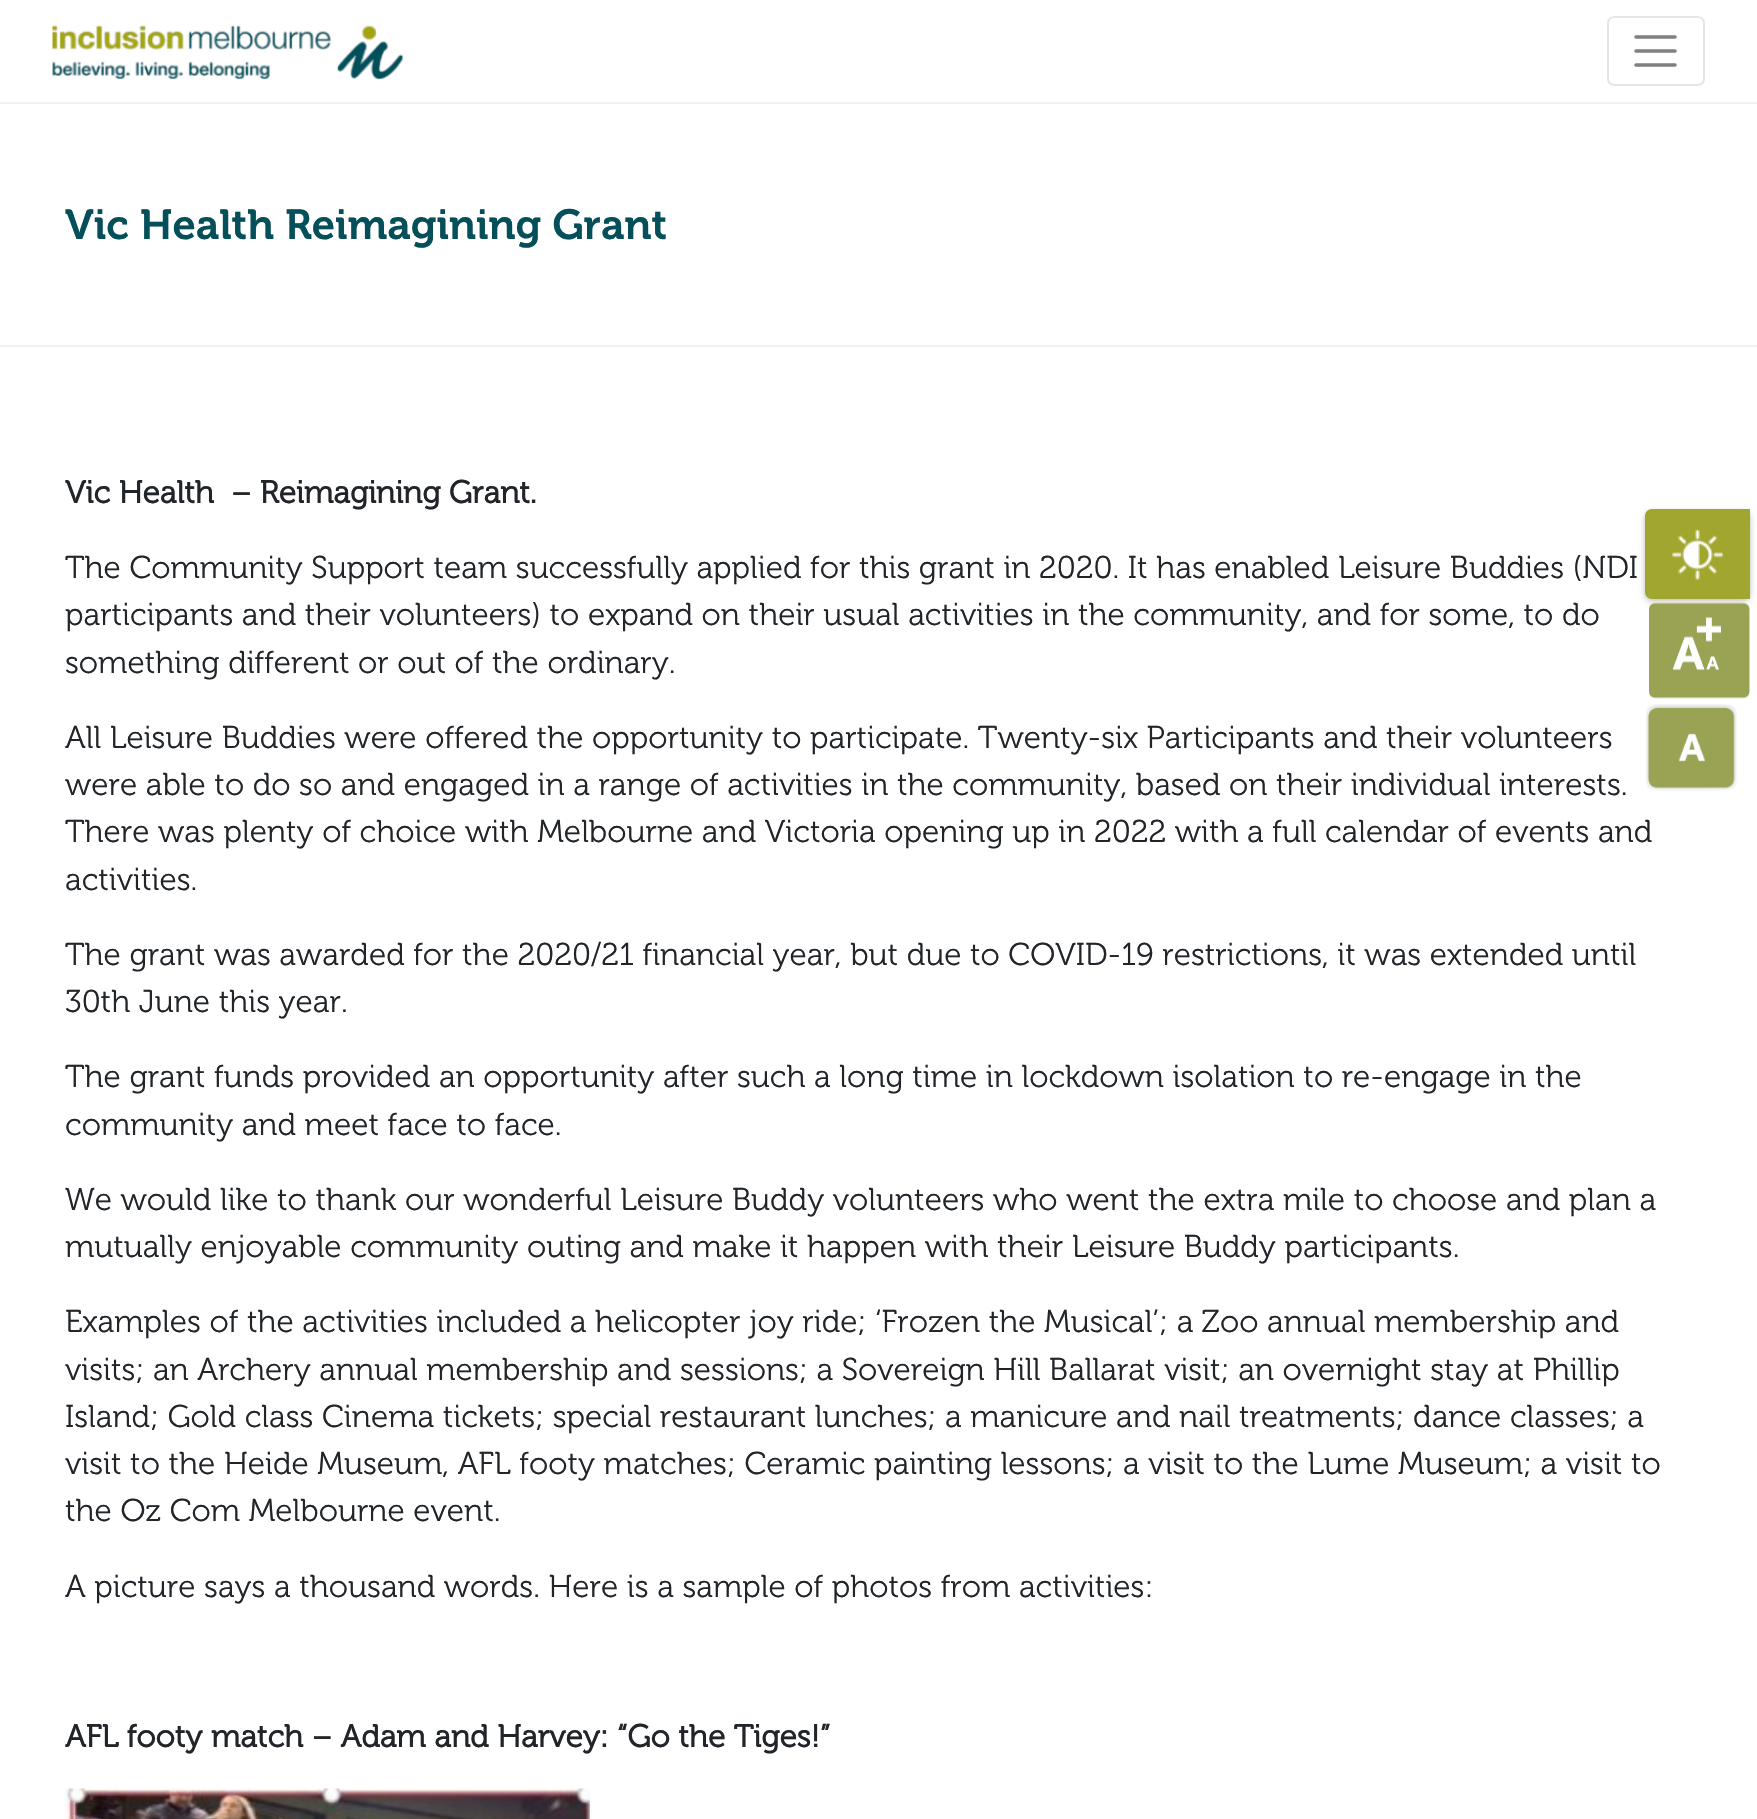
void draw(SkCanvas* canvas) {
	SkPaint fill;
	fill.setAntiAlias(true);
	auto makeFont = [&](const char* family, int weight, float size, bool italic = false) {
		SkFontStyle style(weight, SkFontStyle::kNormal_Width,
			italic ? SkFontStyle::kItalic_Slant : SkFontStyle::kUpright_Slant);
		SkFont result(fontMgr->matchFamilyStyle(family, style), size);
		result.setSubpixel(true);
		return result;
	};
	auto text = [&](const char* s, float x, float y, const SkFont& font) {
		canvas->drawString(s, x, y, font, fill);
	};
	auto box = [&](float l, float t, float r, float b) {
		canvas->drawRect(SkRect::MakeLTRB(l, t, r, b), fill);
	};
	auto picture = [&](const char* path, float l, float t, float r, float b) {
		auto image = SkImages::DeferredFromEncodedData(SkData::MakeFromFileName(path));
		canvas->drawImageRect(image, SkRect::MakeLTRB(l, t, r, b), SkSamplingOptions());
	};
	canvas->clear(0xFFFFFFFF);
	fill.setColor(0xFFF1F1F1);
	box(0, 102, 1757, 104);
	picture("image0.png", 52, 25, 404, 80);
	fill.setStyle(SkPaint::kStroke_Style);
	fill.setStrokeWidth(2);
	fill.setColor(0xFFE6E6E6);
	canvas->drawRoundRect(SkRect::MakeLTRB(1608, 17, 1704, 85), 6, 6, fill);
	fill.setStrokeWidth(3.5f);
	fill.setStrokeCap(SkPaint::kRound_Cap);
	fill.setColor(0xFF808080);
	canvas->drawPath(SkPathBuilder().moveTo(1636, 37).lineTo(1675, 37).moveTo(1636, 51).lineTo(1675, 51).moveTo(1636, 65).lineTo(1675, 65).detach(), fill);
	fill.setStyle(SkPaint::kFill_Style);
	fill.setColor(0xFFF1F1F1);
	box(0, 345, 1757, 347);
	picture("image1.png", 64, 1788, 590, 1819);
	fill.setColor(0x1F000000);
	fill.setMaskFilter(SkMaskFilter::MakeBlur(kNormal_SkBlurStyle, 3.5f));
	canvas->drawRoundRect(SkRect::MakeLTRB(1645, 513, 1750, 602), 7, 7, fill);
	fill.setMaskFilter(nullptr);
	fill.setColor(0x29000000);
	fill.setMaskFilter(SkMaskFilter::MakeBlur(kNormal_SkBlurStyle, 2));
	canvas->drawRoundRect(SkRect::MakeLTRB(1645, 511, 1750, 600), 7, 7, fill);
	fill.setMaskFilter(nullptr);
	fill.setColor(0xFFA1A62F);
	canvas->drawPath(SkPathBuilder().moveTo(1652, 509).lineTo(1750, 509).lineTo(1750, 599).lineTo(1652, 599).cubicTo(1648, 599, 1645, 596, 1645, 592).lineTo(1645, 516).cubicTo(1645, 512, 1648, 509, 1652, 509).close().detach(), fill);
	picture("image2.png", 1672, 529, 1723, 580);
	picture("image3.png", 1649, 602, 1750, 699);
	picture("image4.png", 1646, 704, 1737, 791);
	auto font1 = makeFont("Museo", 400, 42);
	fill.setColor(0xFF044F59);
	text("Vic Health Reimagining Grant", 65, 239, font1);
	auto font2 = makeFont("Museo", 700, 31.5f);
	fill.setColor(0xFF212529);
	text("Vic Health  – Reimagining Grant.", 65, 503, font2);
	auto font3 = makeFont("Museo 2", 400, 31.5f);
	text("The Community Support team successfully applied for this grant in 2020. It has enabled Leisure Buddies (NDI", 65, 578, font3);
	text("participants and their volunteers) to expand on their usual activities in the community, and for some, to do", 65, 625, font3);
	text("something different or out of the ordinary.", 65, 673, font3);
	text("All Leisure Buddies were offered the opportunity to participate. Twenty-six Participants and their volunteers", 65, 748, font3);
	text("were able to do so and engaged in a range of activities in the community, based on their individual interests.", 65, 795, font3);
	text("There was plenty of choice with Melbourne and Victoria opening up in 2022 with a full calendar of events and", 65, 842, font3);
	text("activities.", 65, 890, font3);
	text("The grant was awarded for the 2020/21 financial year, but due to COVID-19 restrictions, it was extended until", 65, 965, font3);
	text("30th June this year.", 65, 1012, font3);
	text("The grant funds provided an opportunity after such a long time in lockdown isolation to re-engage in the", 65, 1087, font3);
	text("community and meet face to face.", 65, 1135, font3);
	text("We would like to thank our wonderful Leisure Buddy volunteers who went the extra mile to choose and plan a", 65, 1210, font3);
	text("mutually enjoyable community outing and make it happen with their Leisure Buddy participants.", 65, 1257, font3);
	text("Examples of the activities included a helicopter joy ride; ‘Frozen the Musical’; a Zoo annual membership and", 65, 1332, font3);
	text("visits; an Archery annual membership and sessions; a Sovereign Hill Ballarat visit; an overnight stay at Phillip", 65, 1380, font3);
	text("Island; Gold class Cinema tickets; special restaurant lunches; a manicure and nail treatments; dance classes; a", 65, 1427, font3);
	text("visit to the Heide Museum, AFL footy matches; Ceramic painting lessons; a visit to the Lume Museum; a visit to", 65, 1474, font3);
	text("the Oz Com Melbourne event.", 65, 1521, font3);
	text("A picture says a thousand words. Here is a sample of photos from activities:", 65, 1597, font3);
	text("AFL footy match – Adam and Harvey: “Go the Tiges!”", 65, 1747, font2);
}
